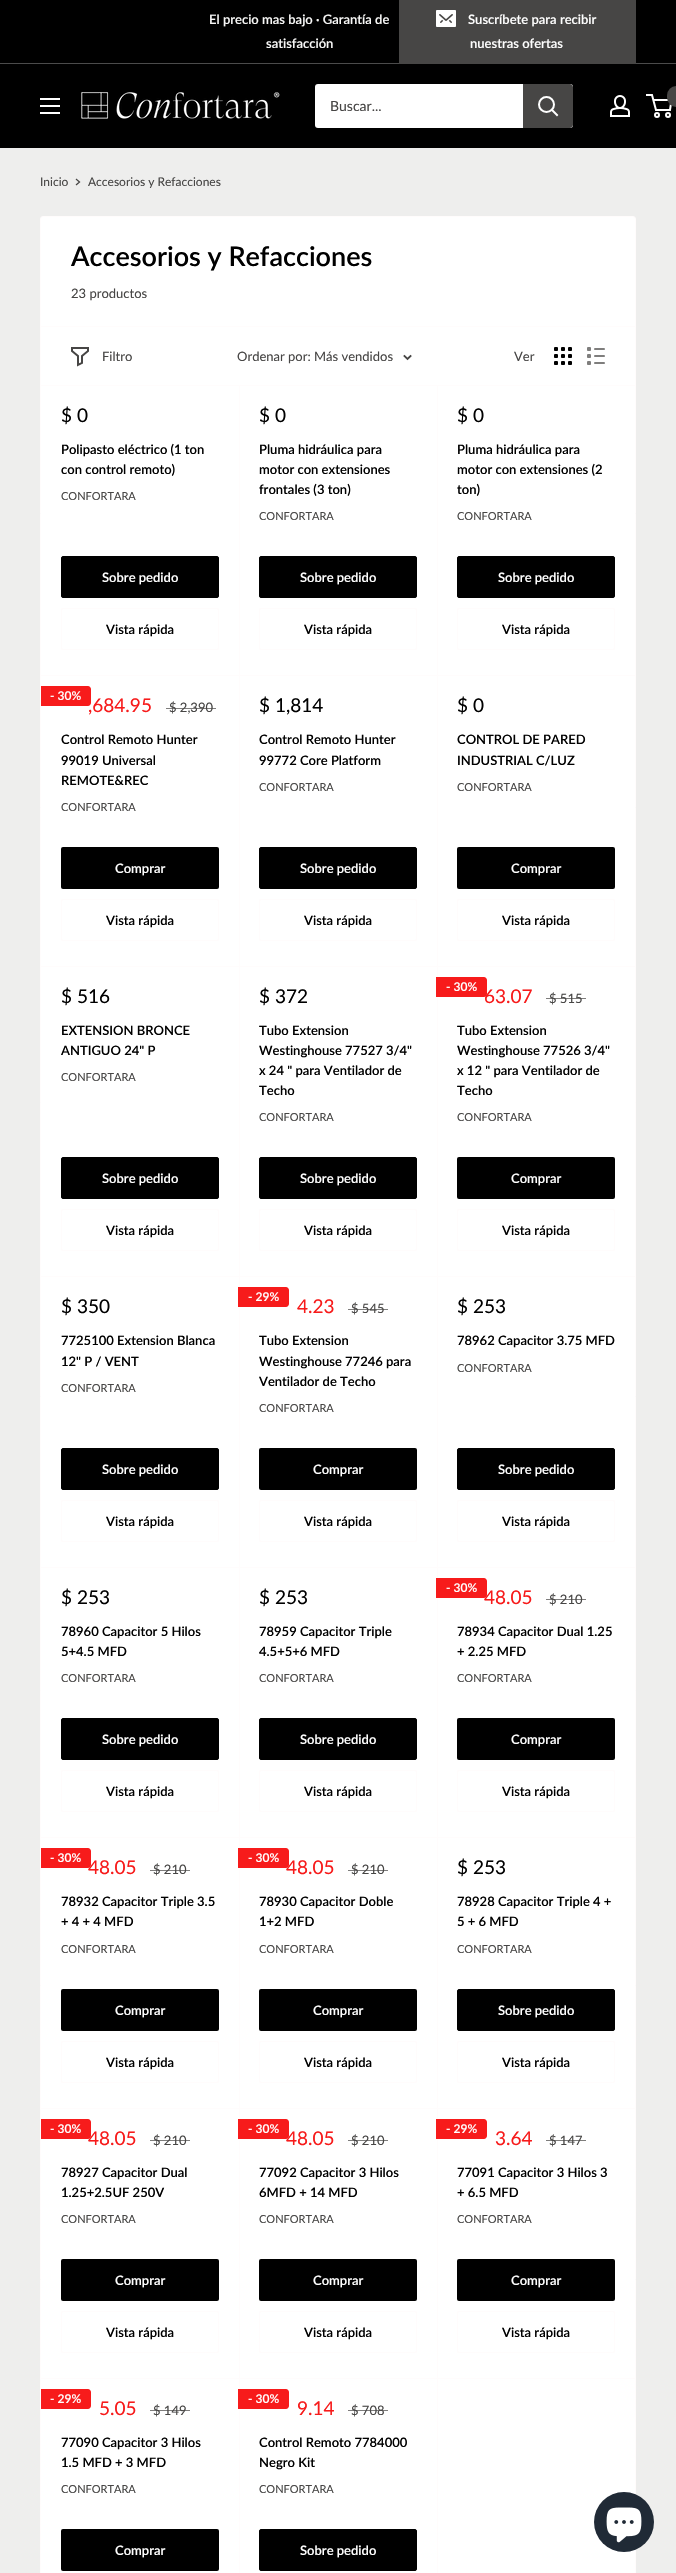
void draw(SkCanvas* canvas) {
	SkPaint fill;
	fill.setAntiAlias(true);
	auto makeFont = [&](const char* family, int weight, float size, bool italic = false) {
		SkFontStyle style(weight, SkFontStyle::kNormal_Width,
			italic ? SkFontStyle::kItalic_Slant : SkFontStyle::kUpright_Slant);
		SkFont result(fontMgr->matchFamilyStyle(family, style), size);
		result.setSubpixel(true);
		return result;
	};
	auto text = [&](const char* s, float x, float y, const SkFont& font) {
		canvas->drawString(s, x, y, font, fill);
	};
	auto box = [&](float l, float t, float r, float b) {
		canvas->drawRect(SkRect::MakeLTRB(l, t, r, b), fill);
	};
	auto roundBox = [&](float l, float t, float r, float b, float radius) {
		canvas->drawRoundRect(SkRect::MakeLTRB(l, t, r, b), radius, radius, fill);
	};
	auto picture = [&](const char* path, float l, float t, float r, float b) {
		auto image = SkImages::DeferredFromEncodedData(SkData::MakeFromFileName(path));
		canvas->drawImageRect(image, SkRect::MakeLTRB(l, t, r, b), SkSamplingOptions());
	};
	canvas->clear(0xFFEEEEED);
	fill.setColor(0xFF000000);
	box(0, 0, 676, 63);
	fill.setColor(0xFF4B4B4B);
	box(0, 63, 676, 64);
	fill.setColor(0xFF474645);
	box(399, 0, 636, 64);
	picture("image0.png", 436, 10, 456, 27);
	fill.setColor(0xFF000000);
	box(0, 64, 676, 148);
	picture("image1.png", 40, 98, 60, 114);
	picture("image2.png", 81, 92, 280, 119);
	fill.setColor(0xFFFFFFFF);
	roundBox(315, 84, 573, 128, 3);
	fill.setColor(0xFF474645);
	canvas->drawPath(SkPathBuilder().moveTo(523, 84).lineTo(570, 84).cubicTo(571.5f, 84, 573, 85.5f, 573, 87).lineTo(573, 125).cubicTo(573, 126.5f, 571.5f, 128, 570, 128).lineTo(523, 128).close().detach(), fill);
	fill.setStyle(SkPaint::kStroke_Style);
	fill.setStrokeWidth(2);
	fill.setStrokeCap(SkPaint::kSquare_Cap);
	fill.setColor(0xFFFFFFFF);
	canvas->drawPath(SkPathBuilder().moveTo(557, 115).lineTo(552, 110).detach(), fill);
	fill.setStrokeCap(SkPaint::kButt_Cap);
	canvas->drawCircle(546.5f, 104.5f, 7.5f, fill);
	picture("image3.png", 610, 95, 630, 117);
	canvas->drawCircle(657, 115, 2, fill);
	canvas->drawCircle(668, 115, 2, fill);
	canvas->drawPath(SkPathBuilder().moveTo(653.5f, 100).lineTo(671.5f, 100).lineTo(670, 110).lineTo(656, 110).lineTo(652, 95).lineTo(646, 95).detach(), fill);
	fill.setStyle(SkPaint::kFill_Style);
	fill.setColor(0xFF474645);
	roundBox(667, 86, 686, 107, 10);
	fill.setStyle(SkPaint::kStroke_Style);
	fill.setStrokeWidth(1.3f);
	fill.setStrokeCap(SkPaint::kSquare_Cap);
	canvas->drawPath(SkPathBuilder().moveTo(76.5f, 179.5f).lineTo(79.5f, 182).lineTo(76.5f, 184.5f).detach(), fill);
	fill.setStyle(SkPaint::kFill_Style);
	fill.setColor(0xFFFFFFFF);
	canvas->drawRoundRect(SkRect::MakeLTRB(40.5f, 216.5f, 635.5f, 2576.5f), 2.5f, 2.5f, fill);
	fill.setStyle(SkPaint::kStroke_Style);
	fill.setStrokeWidth(1);
	fill.setStrokeCap(SkPaint::kButt_Cap);
	fill.setColor(0xFFFFFCFC);
	canvas->drawRoundRect(SkRect::MakeLTRB(40.5f, 216.5f, 635.5f, 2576.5f), 2.5f, 2.5f, fill);
	fill.setStyle(SkPaint::kFill_Style);
	box(41, 326, 635, 327);
	box(41, 675, 635, 676);
	box(239, 385, 240, 966);
	box(437, 385, 438, 966);
	box(41, 385, 635, 386);
	fill.setStyle(SkPaint::kStroke_Style);
	fill.setStrokeWidth(2);
	fill.setStrokeCap(SkPaint::kSquare_Cap);
	fill.setColor(0xFF474645);
	canvas->drawPath(SkPathBuilder().moveTo(88, 351).lineTo(82, 356).lineTo(82, 363).lineTo(78, 365).lineTo(78, 356).lineTo(72, 351).lineTo(72, 348).lineTo(88, 348).close().detach(), fill);
	fill.setStrokeWidth(1.9f);
	canvas->drawPath(SkPathBuilder().moveTo(410.5f, 356).lineTo(407.5f, 359).lineTo(404.5f, 356).detach(), fill);
	picture("image4.png", 554, 347, 572, 365);
	picture("image5.png", 587, 347, 605, 365);
	fill.setStyle(SkPaint::kFill_Style);
	fill.setColor(0xFF000000);
	canvas->drawRoundRect(SkRect::MakeLTRB(61.5f, 556.5f, 218.5f, 597.5f), 1.5f, 1.5f, fill);
	fill.setStyle(SkPaint::kStroke_Style);
	fill.setStrokeWidth(1);
	fill.setStrokeCap(SkPaint::kButt_Cap);
	canvas->drawRoundRect(SkRect::MakeLTRB(61.5f, 556.5f, 218.5f, 597.5f), 1.5f, 1.5f, fill);
	fill.setColor(0xFFFFFCFC);
	canvas->drawRoundRect(SkRect::MakeLTRB(61.5f, 608.5f, 218.5f, 649.5f), 1.5f, 1.5f, fill);
	fill.setStyle(SkPaint::kFill_Style);
	fill.setColor(0xFF000000);
	canvas->drawRoundRect(SkRect::MakeLTRB(259.5f, 556.5f, 416.5f, 597.5f), 1.5f, 1.5f, fill);
	fill.setStyle(SkPaint::kStroke_Style);
	canvas->drawRoundRect(SkRect::MakeLTRB(259.5f, 556.5f, 416.5f, 597.5f), 1.5f, 1.5f, fill);
	fill.setColor(0xFFFFFCFC);
	canvas->drawRoundRect(SkRect::MakeLTRB(259.5f, 608.5f, 416.5f, 649.5f), 1.5f, 1.5f, fill);
	fill.setStyle(SkPaint::kFill_Style);
	fill.setColor(0xFF000000);
	canvas->drawRoundRect(SkRect::MakeLTRB(457.5f, 556.5f, 614.5f, 597.5f), 1.5f, 1.5f, fill);
	fill.setStyle(SkPaint::kStroke_Style);
	canvas->drawRoundRect(SkRect::MakeLTRB(457.5f, 556.5f, 614.5f, 597.5f), 1.5f, 1.5f, fill);
	fill.setColor(0xFFFFFCFC);
	canvas->drawRoundRect(SkRect::MakeLTRB(457.5f, 608.5f, 614.5f, 649.5f), 1.5f, 1.5f, fill);
	fill.setStyle(SkPaint::kFill_Style);
	fill.setColor(0xFFF71B1B);
	canvas->drawPath(SkPathBuilder().moveTo(41, 686).lineTo(88, 686).cubicTo(89.5f, 686, 91, 687.5f, 91, 689).lineTo(91, 703).cubicTo(91, 704.5f, 89.5f, 706, 88, 706).lineTo(41, 706).close().detach(), fill);
	fill.setColor(0xFF000000);
	roundBox(61, 847, 219, 889, 2);
	fill.setStyle(SkPaint::kStroke_Style);
	fill.setColor(0xFFFFFCFC);
	canvas->drawRoundRect(SkRect::MakeLTRB(61.5f, 899.5f, 218.5f, 940.5f), 1.5f, 1.5f, fill);
	fill.setStyle(SkPaint::kFill_Style);
	box(41, 966, 635, 967);
	fill.setColor(0xFF000000);
	canvas->drawRoundRect(SkRect::MakeLTRB(259.5f, 847.5f, 416.5f, 888.5f), 1.5f, 1.5f, fill);
	fill.setStyle(SkPaint::kStroke_Style);
	canvas->drawRoundRect(SkRect::MakeLTRB(259.5f, 847.5f, 416.5f, 888.5f), 1.5f, 1.5f, fill);
	fill.setColor(0xFFFFFCFC);
	canvas->drawRoundRect(SkRect::MakeLTRB(259.5f, 899.5f, 416.5f, 940.5f), 1.5f, 1.5f, fill);
	fill.setStyle(SkPaint::kFill_Style);
	fill.setColor(0xFF000000);
	roundBox(457, 847, 615, 889, 2);
	fill.setStyle(SkPaint::kStroke_Style);
	fill.setColor(0xFFFFFCFC);
	canvas->drawRoundRect(SkRect::MakeLTRB(457.5f, 899.5f, 614.5f, 940.5f), 1.5f, 1.5f, fill);
	fill.setStyle(SkPaint::kFill_Style);
	box(41, 1276, 635, 1277);
	box(239, 966, 240, 1567);
	fill.setColor(0xFF000000);
	canvas->drawRoundRect(SkRect::MakeLTRB(61.5f, 1157.5f, 218.5f, 1198.5f), 1.5f, 1.5f, fill);
	fill.setStyle(SkPaint::kStroke_Style);
	canvas->drawRoundRect(SkRect::MakeLTRB(61.5f, 1157.5f, 218.5f, 1198.5f), 1.5f, 1.5f, fill);
	fill.setColor(0xFFFFFCFC);
	canvas->drawRoundRect(SkRect::MakeLTRB(61.5f, 1209.5f, 218.5f, 1250.5f), 1.5f, 1.5f, fill);
	fill.setStyle(SkPaint::kFill_Style);
	fill.setColor(0xFF000000);
	canvas->drawRoundRect(SkRect::MakeLTRB(259.5f, 1157.5f, 416.5f, 1198.5f), 1.5f, 1.5f, fill);
	fill.setStyle(SkPaint::kStroke_Style);
	canvas->drawRoundRect(SkRect::MakeLTRB(259.5f, 1157.5f, 416.5f, 1198.5f), 1.5f, 1.5f, fill);
	fill.setColor(0xFFFFFCFC);
	canvas->drawRoundRect(SkRect::MakeLTRB(259.5f, 1209.5f, 416.5f, 1250.5f), 1.5f, 1.5f, fill);
	fill.setStyle(SkPaint::kFill_Style);
	box(437, 966, 438, 1567);
	fill.setColor(0xFFF71B1B);
	canvas->drawPath(SkPathBuilder().moveTo(436, 977).lineTo(484, 977).cubicTo(485.5f, 977, 487, 978.5f, 487, 980).lineTo(487, 994).cubicTo(487, 995.5f, 485.5f, 997, 484, 997).lineTo(436, 997).close().detach(), fill);
	fill.setColor(0xFF000000);
	roundBox(457, 1157, 615, 1199, 2);
	fill.setStyle(SkPaint::kStroke_Style);
	fill.setColor(0xFFFFFCFC);
	canvas->drawRoundRect(SkRect::MakeLTRB(457.5f, 1209.5f, 614.5f, 1250.5f), 1.5f, 1.5f, fill);
	fill.setStyle(SkPaint::kFill_Style);
	fill.setColor(0xFF000000);
	canvas->drawRoundRect(SkRect::MakeLTRB(61.5f, 1448.5f, 218.5f, 1489.5f), 1.5f, 1.5f, fill);
	fill.setStyle(SkPaint::kStroke_Style);
	canvas->drawRoundRect(SkRect::MakeLTRB(61.5f, 1448.5f, 218.5f, 1489.5f), 1.5f, 1.5f, fill);
	fill.setColor(0xFFFFFCFC);
	canvas->drawRoundRect(SkRect::MakeLTRB(61.5f, 1500.5f, 218.5f, 1541.5f), 1.5f, 1.5f, fill);
	fill.setStyle(SkPaint::kFill_Style);
	box(41, 1567, 635, 1568);
	fill.setColor(0xFFF71B1B);
	canvas->drawPath(SkPathBuilder().moveTo(238, 1287).lineTo(286, 1287).cubicTo(287.5f, 1287, 289, 1288.5f, 289, 1290).lineTo(289, 1304).cubicTo(289, 1305.5f, 287.5f, 1307, 286, 1307).lineTo(238, 1307).close().detach(), fill);
	fill.setColor(0xFF000000);
	roundBox(259, 1448, 417, 1490, 2);
	fill.setStyle(SkPaint::kStroke_Style);
	fill.setColor(0xFFFFFCFC);
	canvas->drawRoundRect(SkRect::MakeLTRB(259.5f, 1500.5f, 416.5f, 1541.5f), 1.5f, 1.5f, fill);
	fill.setStyle(SkPaint::kFill_Style);
	fill.setColor(0xFF000000);
	canvas->drawRoundRect(SkRect::MakeLTRB(457.5f, 1448.5f, 614.5f, 1489.5f), 1.5f, 1.5f, fill);
	fill.setStyle(SkPaint::kStroke_Style);
	canvas->drawRoundRect(SkRect::MakeLTRB(457.5f, 1448.5f, 614.5f, 1489.5f), 1.5f, 1.5f, fill);
	fill.setColor(0xFFFFFCFC);
	canvas->drawRoundRect(SkRect::MakeLTRB(457.5f, 1500.5f, 614.5f, 1541.5f), 1.5f, 1.5f, fill);
	fill.setStyle(SkPaint::kFill_Style);
	box(41, 1837, 635, 1838);
	box(239, 1567, 240, 2108);
	fill.setColor(0xFF000000);
	canvas->drawRoundRect(SkRect::MakeLTRB(61.5f, 1718.5f, 218.5f, 1759.5f), 1.5f, 1.5f, fill);
	fill.setStyle(SkPaint::kStroke_Style);
	canvas->drawRoundRect(SkRect::MakeLTRB(61.5f, 1718.5f, 218.5f, 1759.5f), 1.5f, 1.5f, fill);
	fill.setColor(0xFFFFFCFC);
	canvas->drawRoundRect(SkRect::MakeLTRB(61.5f, 1770.5f, 218.5f, 1811.5f), 1.5f, 1.5f, fill);
	fill.setStyle(SkPaint::kFill_Style);
	fill.setColor(0xFF000000);
	canvas->drawRoundRect(SkRect::MakeLTRB(259.5f, 1718.5f, 416.5f, 1759.5f), 1.5f, 1.5f, fill);
	fill.setStyle(SkPaint::kStroke_Style);
	canvas->drawRoundRect(SkRect::MakeLTRB(259.5f, 1718.5f, 416.5f, 1759.5f), 1.5f, 1.5f, fill);
	fill.setColor(0xFFFFFCFC);
	canvas->drawRoundRect(SkRect::MakeLTRB(259.5f, 1770.5f, 416.5f, 1811.5f), 1.5f, 1.5f, fill);
	fill.setStyle(SkPaint::kFill_Style);
	box(437, 1567, 438, 2108);
	fill.setColor(0xFFF71B1B);
	canvas->drawPath(SkPathBuilder().moveTo(436, 1578).lineTo(484, 1578).cubicTo(485.5f, 1578, 487, 1579.5f, 487, 1581).lineTo(487, 1595).cubicTo(487, 1596.5f, 485.5f, 1598, 484, 1598).lineTo(436, 1598).close().detach(), fill);
	fill.setColor(0xFF000000);
	roundBox(457, 1718, 615, 1760, 2);
	fill.setStyle(SkPaint::kStroke_Style);
	fill.setColor(0xFFFFFCFC);
	canvas->drawRoundRect(SkRect::MakeLTRB(457.5f, 1770.5f, 614.5f, 1811.5f), 1.5f, 1.5f, fill);
	fill.setStyle(SkPaint::kFill_Style);
	fill.setColor(0xFFF71B1B);
	canvas->drawPath(SkPathBuilder().moveTo(41, 1848).lineTo(88, 1848).cubicTo(89.5f, 1848, 91, 1849.5f, 91, 1851).lineTo(91, 1865).cubicTo(91, 1866.5f, 89.5f, 1868, 88, 1868).lineTo(41, 1868).close().detach(), fill);
	fill.setColor(0xFF000000);
	roundBox(61, 1989, 219, 2031, 2);
	fill.setStyle(SkPaint::kStroke_Style);
	fill.setColor(0xFFFFFCFC);
	canvas->drawRoundRect(SkRect::MakeLTRB(61.5f, 2041.5f, 218.5f, 2082.5f), 1.5f, 1.5f, fill);
	fill.setStyle(SkPaint::kFill_Style);
	box(41, 2108, 635, 2109);
	fill.setColor(0xFFF71B1B);
	canvas->drawPath(SkPathBuilder().moveTo(238, 1848).lineTo(286, 1848).cubicTo(287.5f, 1848, 289, 1849.5f, 289, 1851).lineTo(289, 1865).cubicTo(289, 1866.5f, 287.5f, 1868, 286, 1868).lineTo(238, 1868).close().detach(), fill);
	fill.setColor(0xFF000000);
	roundBox(259, 1989, 417, 2031, 2);
	fill.setStyle(SkPaint::kStroke_Style);
	fill.setColor(0xFFFFFCFC);
	canvas->drawRoundRect(SkRect::MakeLTRB(259.5f, 2041.5f, 416.5f, 2082.5f), 1.5f, 1.5f, fill);
	fill.setStyle(SkPaint::kFill_Style);
	fill.setColor(0xFF000000);
	canvas->drawRoundRect(SkRect::MakeLTRB(457.5f, 1989.5f, 614.5f, 2030.5f), 1.5f, 1.5f, fill);
	fill.setStyle(SkPaint::kStroke_Style);
	canvas->drawRoundRect(SkRect::MakeLTRB(457.5f, 1989.5f, 614.5f, 2030.5f), 1.5f, 1.5f, fill);
	fill.setColor(0xFFFFFCFC);
	canvas->drawRoundRect(SkRect::MakeLTRB(457.5f, 2041.5f, 614.5f, 2082.5f), 1.5f, 1.5f, fill);
	fill.setStyle(SkPaint::kFill_Style);
	box(41, 2378, 635, 2379);
	box(239, 2108, 240, 2573);
	fill.setColor(0xFFF71B1B);
	canvas->drawPath(SkPathBuilder().moveTo(41, 2119).lineTo(88, 2119).cubicTo(89.5f, 2119, 91, 2120.5f, 91, 2122).lineTo(91, 2136).cubicTo(91, 2137.5f, 89.5f, 2139, 88, 2139).lineTo(41, 2139).close().detach(), fill);
	fill.setColor(0xFF000000);
	roundBox(61, 2259, 219, 2301, 2);
	fill.setStyle(SkPaint::kStroke_Style);
	fill.setColor(0xFFFFFCFC);
	canvas->drawRoundRect(SkRect::MakeLTRB(61.5f, 2311.5f, 218.5f, 2352.5f), 1.5f, 1.5f, fill);
	fill.setStyle(SkPaint::kFill_Style);
	fill.setColor(0xFFF71B1B);
	canvas->drawPath(SkPathBuilder().moveTo(238, 2119).lineTo(286, 2119).cubicTo(287.5f, 2119, 289, 2120.5f, 289, 2122).lineTo(289, 2136).cubicTo(289, 2137.5f, 287.5f, 2139, 286, 2139).lineTo(238, 2139).close().detach(), fill);
	fill.setColor(0xFFFFFCFC);
	box(437, 2108, 438, 2573);
	fill.setColor(0xFF000000);
	roundBox(259, 2259, 417, 2301, 2);
	fill.setStyle(SkPaint::kStroke_Style);
	fill.setColor(0xFFFFFCFC);
	canvas->drawRoundRect(SkRect::MakeLTRB(259.5f, 2311.5f, 416.5f, 2352.5f), 1.5f, 1.5f, fill);
	fill.setStyle(SkPaint::kFill_Style);
	fill.setColor(0xFFF71B1B);
	canvas->drawPath(SkPathBuilder().moveTo(436, 2119).lineTo(484, 2119).cubicTo(485.5f, 2119, 487, 2120.5f, 487, 2122).lineTo(487, 2136).cubicTo(487, 2137.5f, 485.5f, 2139, 484, 2139).lineTo(436, 2139).close().detach(), fill);
	fill.setColor(0xFF000000);
	roundBox(457, 2259, 615, 2301, 2);
	fill.setStyle(SkPaint::kStroke_Style);
	fill.setColor(0xFFFFFCFC);
	canvas->drawRoundRect(SkRect::MakeLTRB(457.5f, 2311.5f, 614.5f, 2352.5f), 1.5f, 1.5f, fill);
	fill.setStyle(SkPaint::kFill_Style);
	fill.setColor(0xFFF71B1B);
	canvas->drawPath(SkPathBuilder().moveTo(41, 2389).lineTo(88, 2389).cubicTo(89.5f, 2389, 91, 2390.5f, 91, 2392).lineTo(91, 2406).cubicTo(91, 2407.5f, 89.5f, 2409, 88, 2409).lineTo(41, 2409).close().detach(), fill);
	fill.setColor(0xFF000000);
	roundBox(61, 2529, 219, 2571, 2);
	fill.setColor(0xFFF71B1B);
	canvas->drawPath(SkPathBuilder().moveTo(238, 2389).lineTo(286, 2389).cubicTo(287.5f, 2389, 289, 2390.5f, 289, 2392).lineTo(289, 2406).cubicTo(289, 2407.5f, 287.5f, 2409, 286, 2409).lineTo(238, 2409).close().detach(), fill);
	fill.setColor(0xFF000000);
	canvas->drawRoundRect(SkRect::MakeLTRB(259.5f, 2529.5f, 416.5f, 2570.5f), 1.5f, 1.5f, fill);
	fill.setStyle(SkPaint::kStroke_Style);
	canvas->drawRoundRect(SkRect::MakeLTRB(259.5f, 2529.5f, 416.5f, 2570.5f), 1.5f, 1.5f, fill);
	fill.setStyle(SkPaint::kFill_Style);
	fill.setColor(0xFF202A36);
	canvas->drawCircle(624, 2522, 30, fill);
	picture("image6.png", 606, 2507, 642, 2543);
	auto font1 = makeFont("Lato", 600, 13);
	fill.setColor(0xFFF8F8F7);
	text("El precio mas bajo · Garantía de", 209, 24, font1);
	text("satisfacción", 266, 48, font1);
	fill.setColor(0xFFFFFFFF);
	text("Suscríbete para recibir", 468, 24, font1);
	text("nuestras ofertas", 470, 48, font1);
	auto font2 = makeFont("Lato", 400, 14);
	fill.setColor(0xFF474645);
	text("Buscar...", 330, 111, font2);
	auto font3 = makeFont("Lato", 400, 12);
	text("Inicio", 40, 186, font3);
	text("Accesorios y Refacciones", 88, 186, font3);
	auto font4 = makeFont("Lato", 600, 27);
	fill.setColor(0xFF000000);
	text("Accesorios y Refacciones", 71, 266, font4);
	auto font5 = makeFont("Lato", 400, 13);
	fill.setColor(0xFF474645);
	text("23 productos", 71, 298, font5);
	text("Filtro", 102, 361, font5);
	text("Ordenar por: Más vendidos", 237, 361, font5);
	text("Ver", 514, 361, font5);
	auto font6 = makeFont("Lato", 400, 19);
	fill.setColor(0xFF000000);
	text("$ 0", 61, 422, font6);
	text("Polipasto eléctrico (1 ton", 61, 454, font1);
	text("con control remoto)", 61, 474, font1);
	auto font7 = makeFont("Lato", 400, 11);
	fill.setColor(0xFF474645);
	text("CONFORTARA", 61, 500, font7);
	fill.setColor(0xFFFFFFFF);
	text("Sobre pedido", 102, 582, font1);
	fill.setColor(0xFF000000);
	text("Vista rápida", 106, 634, font1);
	text("$ 0", 259, 422, font6);
	text("Pluma hidráulica para", 259, 454, font1);
	text("motor con extensiones", 259, 474, font1);
	text("frontales (3 ton)", 259, 494, font1);
	fill.setColor(0xFF474645);
	text("CONFORTARA", 259, 520, font7);
	fill.setColor(0xFFFFFFFF);
	text("Sobre pedido", 300, 582, font1);
	fill.setColor(0xFF000000);
	text("Vista rápida", 304, 634, font1);
	text("$ 0", 457, 422, font6);
	text("Pluma hidráulica para", 457, 454, font1);
	text("motor con extensiones (2", 457, 474, font1);
	text("ton)", 457, 494, font1);
	fill.setColor(0xFF474645);
	text("CONFORTARA", 457, 520, font7);
	fill.setColor(0xFFFFFFFF);
	text("Sobre pedido", 498, 582, font1);
	fill.setColor(0xFF000000);
	text("Vista rápida", 502, 634, font1);
	auto font8 = makeFont("Lato", 600, 12);
	fill.setColor(0xFFFFFFFF);
	text("- 30%", 50, 700, font8);
	fill.setColor(0xFFF71B1B);
	text(",684.95", 88, 712, font6);
	fill.setColor(0xFF474645);
	text("$ 2,390", 169, 712, font5);
	fill.setColor(0xB3474645);
	box(166, 708, 216, 709);
	fill.setColor(0xFF000000);
	text("Control Remoto Hunter", 61, 744, font1);
	text("99019 Universal", 61, 765, font1);
	text("REMOTE&REC", 61, 785, font1);
	fill.setColor(0xFF474645);
	text("CONFORTARA", 61, 811, font7);
	fill.setColor(0xFFFFFFFF);
	text("Comprar", 115, 873, font1);
	fill.setColor(0xFF000000);
	text("Vista rápida", 106, 925, font1);
	text("$ 1,814", 259, 712, font6);
	text("Control Remoto Hunter", 259, 744, font1);
	text("99772 Core Platform", 259, 765, font1);
	fill.setColor(0xFF474645);
	text("CONFORTARA", 259, 791, font7);
	fill.setColor(0xFFFFFFFF);
	text("Sobre pedido", 300, 873, font1);
	fill.setColor(0xFF000000);
	text("Vista rápida", 304, 925, font1);
	text("$ 0", 457, 712, font6);
	text("CONTROL DE PARED", 457, 744, font1);
	text("INDUSTRIAL C/LUZ", 457, 765, font1);
	fill.setColor(0xFF474645);
	text("CONFORTARA", 457, 791, font7);
	fill.setColor(0xFFFFFFFF);
	text("Comprar", 511, 873, font1);
	fill.setColor(0xFF000000);
	text("Vista rápida", 502, 925, font1);
	text("$ 516", 61, 1003, font6);
	text("EXTENSION BRONCE", 61, 1035, font1);
	text("ANTIGUO 24\" P", 61, 1055, font1);
	fill.setColor(0xFF474645);
	text("CONFORTARA", 61, 1081, font7);
	fill.setColor(0xFFFFFFFF);
	text("Sobre pedido", 102, 1183, font1);
	fill.setColor(0xFF000000);
	text("Vista rápida", 106, 1235, font1);
	text("$ 372", 259, 1003, font6);
	text("Tubo Extension", 259, 1035, font1);
	text("Westinghouse 77527 3/4\"", 259, 1055, font1);
	text("x 24 \" para Ventilador de", 259, 1075, font1);
	text("Techo", 259, 1095, font1);
	fill.setColor(0xFF474645);
	text("CONFORTARA", 259, 1121, font7);
	fill.setColor(0xFFFFFFFF);
	text("Sobre pedido", 300, 1183, font1);
	fill.setColor(0xFF000000);
	text("Vista rápida", 304, 1235, font1);
	fill.setColor(0xFFFFFFFF);
	text("- 30%", 446, 991, font8);
	fill.setColor(0xFFF71B1B);
	text("63.07", 484, 1003, font6);
	fill.setColor(0xFF474645);
	text("$ 515", 549, 1003, font5);
	fill.setColor(0xB3474645);
	box(546, 998, 586, 999);
	fill.setColor(0xFF000000);
	text("Tubo Extension", 457, 1035, font1);
	text("Westinghouse 77526 3/4\"", 457, 1055, font1);
	text("x 12 \" para Ventilador de", 457, 1075, font1);
	text("Techo", 457, 1095, font1);
	fill.setColor(0xFF474645);
	text("CONFORTARA", 457, 1121, font7);
	fill.setColor(0xFFFFFFFF);
	text("Comprar", 511, 1183, font1);
	fill.setColor(0xFF000000);
	text("Vista rápida", 502, 1235, font1);
	text("$ 350", 61, 1313, font6);
	text("7725100 Extension Blanca", 61, 1345, font1);
	text("12\" P / VENT", 61, 1366, font1);
	fill.setColor(0xFF474645);
	text("CONFORTARA", 61, 1392, font7);
	fill.setColor(0xFFFFFFFF);
	text("Sobre pedido", 102, 1474, font1);
	fill.setColor(0xFF000000);
	text("Vista rápida", 106, 1526, font1);
	fill.setColor(0xFFFFFFFF);
	text("- 29%", 248, 1301, font8);
	fill.setColor(0xFFF71B1B);
	text("4.23", 297, 1313, font6);
	fill.setColor(0xFF474645);
	text("$ 545", 351, 1313, font5);
	fill.setColor(0xB3474645);
	box(348, 1309, 388, 1310);
	fill.setColor(0xFF000000);
	text("Tubo Extension", 259, 1345, font1);
	text("Westinghouse 77246 para", 259, 1366, font1);
	text("Ventilador de Techo", 259, 1386, font1);
	fill.setColor(0xFF474645);
	text("CONFORTARA", 259, 1412, font7);
	fill.setColor(0xFFFFFFFF);
	text("Comprar", 313, 1474, font1);
	fill.setColor(0xFF000000);
	text("Vista rápida", 304, 1526, font1);
	text("$ 253", 457, 1313, font6);
	text("78962 Capacitor 3.75 MFD", 457, 1345, font1);
	fill.setColor(0xFF474645);
	text("CONFORTARA", 457, 1372, font7);
	fill.setColor(0xFFFFFFFF);
	text("Sobre pedido", 498, 1474, font1);
	fill.setColor(0xFF000000);
	text("Vista rápida", 502, 1526, font1);
	text("$ 253", 61, 1604, font6);
	text("78960 Capacitor 5 Hilos", 61, 1636, font1);
	text("5+4.5 MFD", 61, 1656, font1);
	fill.setColor(0xFF474645);
	text("CONFORTARA", 61, 1682, font7);
	fill.setColor(0xFFFFFFFF);
	text("Sobre pedido", 102, 1744, font1);
	fill.setColor(0xFF000000);
	text("Vista rápida", 106, 1796, font1);
	text("$ 253", 259, 1604, font6);
	text("78959 Capacitor Triple", 259, 1636, font1);
	text("4.5+5+6 MFD", 259, 1656, font1);
	fill.setColor(0xFF474645);
	text("CONFORTARA", 259, 1682, font7);
	fill.setColor(0xFFFFFFFF);
	text("Sobre pedido", 300, 1744, font1);
	fill.setColor(0xFF000000);
	text("Vista rápida", 304, 1796, font1);
	fill.setColor(0xFFFFFFFF);
	text("- 30%", 446, 1592, font8);
	fill.setColor(0xFFF71B1B);
	text("48.05", 484, 1604, font6);
	fill.setColor(0xFF474645);
	text("$ 210", 549, 1604, font5);
	fill.setColor(0xB3474645);
	box(546, 1599, 586, 1600);
	fill.setColor(0xFF000000);
	text("78934 Capacitor Dual 1.25", 457, 1636, font1);
	text("+ 2.25 MFD", 457, 1656, font1);
	fill.setColor(0xFF474645);
	text("CONFORTARA", 457, 1682, font7);
	fill.setColor(0xFFFFFFFF);
	text("Comprar", 511, 1744, font1);
	fill.setColor(0xFF000000);
	text("Vista rápida", 502, 1796, font1);
	fill.setColor(0xFFFFFFFF);
	text("- 30%", 50, 1862, font8);
	fill.setColor(0xFFF71B1B);
	text("48.05", 88, 1874, font6);
	fill.setColor(0xFF474645);
	text("$ 210", 153, 1874, font5);
	fill.setColor(0xB3474645);
	box(150, 1870, 190, 1871);
	fill.setColor(0xFF000000);
	text("78932 Capacitor Triple 3.5", 61, 1906, font1);
	text("+ 4 + 4 MFD", 61, 1926, font1);
	fill.setColor(0xFF474645);
	text("CONFORTARA", 61, 1953, font7);
	fill.setColor(0xFFFFFFFF);
	text("Comprar", 115, 2015, font1);
	fill.setColor(0xFF000000);
	text("Vista rápida", 106, 2067, font1);
	fill.setColor(0xFFFFFFFF);
	text("- 30%", 248, 1862, font8);
	fill.setColor(0xFFF71B1B);
	text("48.05", 286, 1874, font6);
	fill.setColor(0xFF474645);
	text("$ 210", 351, 1874, font5);
	fill.setColor(0xB3474645);
	box(348, 1870, 388, 1871);
	fill.setColor(0xFF000000);
	text("78930 Capacitor Doble", 259, 1906, font1);
	text("1+2 MFD", 259, 1926, font1);
	fill.setColor(0xFF474645);
	text("CONFORTARA", 259, 1953, font7);
	fill.setColor(0xFFFFFFFF);
	text("Comprar", 313, 2015, font1);
	fill.setColor(0xFF000000);
	text("Vista rápida", 304, 2067, font1);
	text("$ 253", 457, 1874, font6);
	text("78928 Capacitor Triple 4 +", 457, 1906, font1);
	text("5 + 6 MFD", 457, 1926, font1);
	fill.setColor(0xFF474645);
	text("CONFORTARA", 457, 1953, font7);
	fill.setColor(0xFFFFFFFF);
	text("Sobre pedido", 498, 2015, font1);
	fill.setColor(0xFF000000);
	text("Vista rápida", 502, 2067, font1);
	fill.setColor(0xFFFFFFFF);
	text("- 30%", 50, 2133, font8);
	fill.setColor(0xFFF71B1B);
	text("48.05", 88, 2145, font6);
	fill.setColor(0xFF474645);
	text("$ 210", 153, 2145, font5);
	fill.setColor(0xB3474645);
	box(150, 2140, 190, 2141);
	fill.setColor(0xFF000000);
	text("78927 Capacitor Dual", 61, 2177, font1);
	text("1.25+2.5UF 250V", 61, 2197, font1);
	fill.setColor(0xFF474645);
	text("CONFORTARA", 61, 2223, font7);
	fill.setColor(0xFFFFFFFF);
	text("Comprar", 115, 2285, font1);
	fill.setColor(0xFF000000);
	text("Vista rápida", 106, 2337, font1);
	fill.setColor(0xFFFFFFFF);
	text("- 30%", 248, 2133, font8);
	fill.setColor(0xFFF71B1B);
	text("48.05", 286, 2145, font6);
	fill.setColor(0xFF474645);
	text("$ 210", 351, 2145, font5);
	fill.setColor(0xB3474645);
	box(348, 2140, 388, 2141);
	fill.setColor(0xFF000000);
	text("77092 Capacitor 3 Hilos", 259, 2177, font1);
	text("6MFD + 14 MFD", 259, 2197, font1);
	fill.setColor(0xFF474645);
	text("CONFORTARA", 259, 2223, font7);
	fill.setColor(0xFFFFFFFF);
	text("Comprar", 313, 2285, font1);
	fill.setColor(0xFF000000);
	text("Vista rápida", 304, 2337, font1);
	fill.setColor(0xFFFFFFFF);
	text("- 29%", 446, 2133, font8);
	fill.setColor(0xFFF71B1B);
	text("3.64", 495, 2145, font6);
	fill.setColor(0xFF474645);
	text("$ 147", 549, 2145, font5);
	fill.setColor(0xB3474645);
	box(546, 2140, 586, 2141);
	fill.setColor(0xFF000000);
	text("77091 Capacitor 3 Hilos 3", 457, 2177, font1);
	text("+ 6.5 MFD", 457, 2197, font1);
	fill.setColor(0xFF474645);
	text("CONFORTARA", 457, 2223, font7);
	fill.setColor(0xFFFFFFFF);
	text("Comprar", 511, 2285, font1);
	fill.setColor(0xFF000000);
	text("Vista rápida", 502, 2337, font1);
	fill.setColor(0xFFFFFFFF);
	text("- 29%", 50, 2403, font8);
	fill.setColor(0xFFF71B1B);
	text("5.05", 99, 2415, font6);
	fill.setColor(0xFF474645);
	text("$ 149", 153, 2415, font5);
	fill.setColor(0xB3474645);
	box(150, 2410, 190, 2411);
	fill.setColor(0xFF000000);
	text("77090 Capacitor 3 Hilos", 61, 2447, font1);
	text("1.5 MFD + 3 MFD", 61, 2467, font1);
	fill.setColor(0xFF474645);
	text("CONFORTARA", 61, 2493, font7);
	fill.setColor(0xFFFFFFFF);
	text("Comprar", 115, 2555, font1);
	text("- 30%", 248, 2403, font8);
	fill.setColor(0xFFF71B1B);
	text("9.14", 297, 2415, font6);
	fill.setColor(0xFF474645);
	text("$ 708", 351, 2415, font5);
	fill.setColor(0xB3474645);
	box(348, 2410, 388, 2411);
	fill.setColor(0xFF000000);
	text("Control Remoto 7784000", 259, 2447, font1);
	text("Negro Kit", 259, 2467, font1);
	fill.setColor(0xFF474645);
	text("CONFORTARA", 259, 2493, font7);
	fill.setColor(0xFFFFFFFF);
	text("Sobre pedido", 300, 2555, font1);
}
